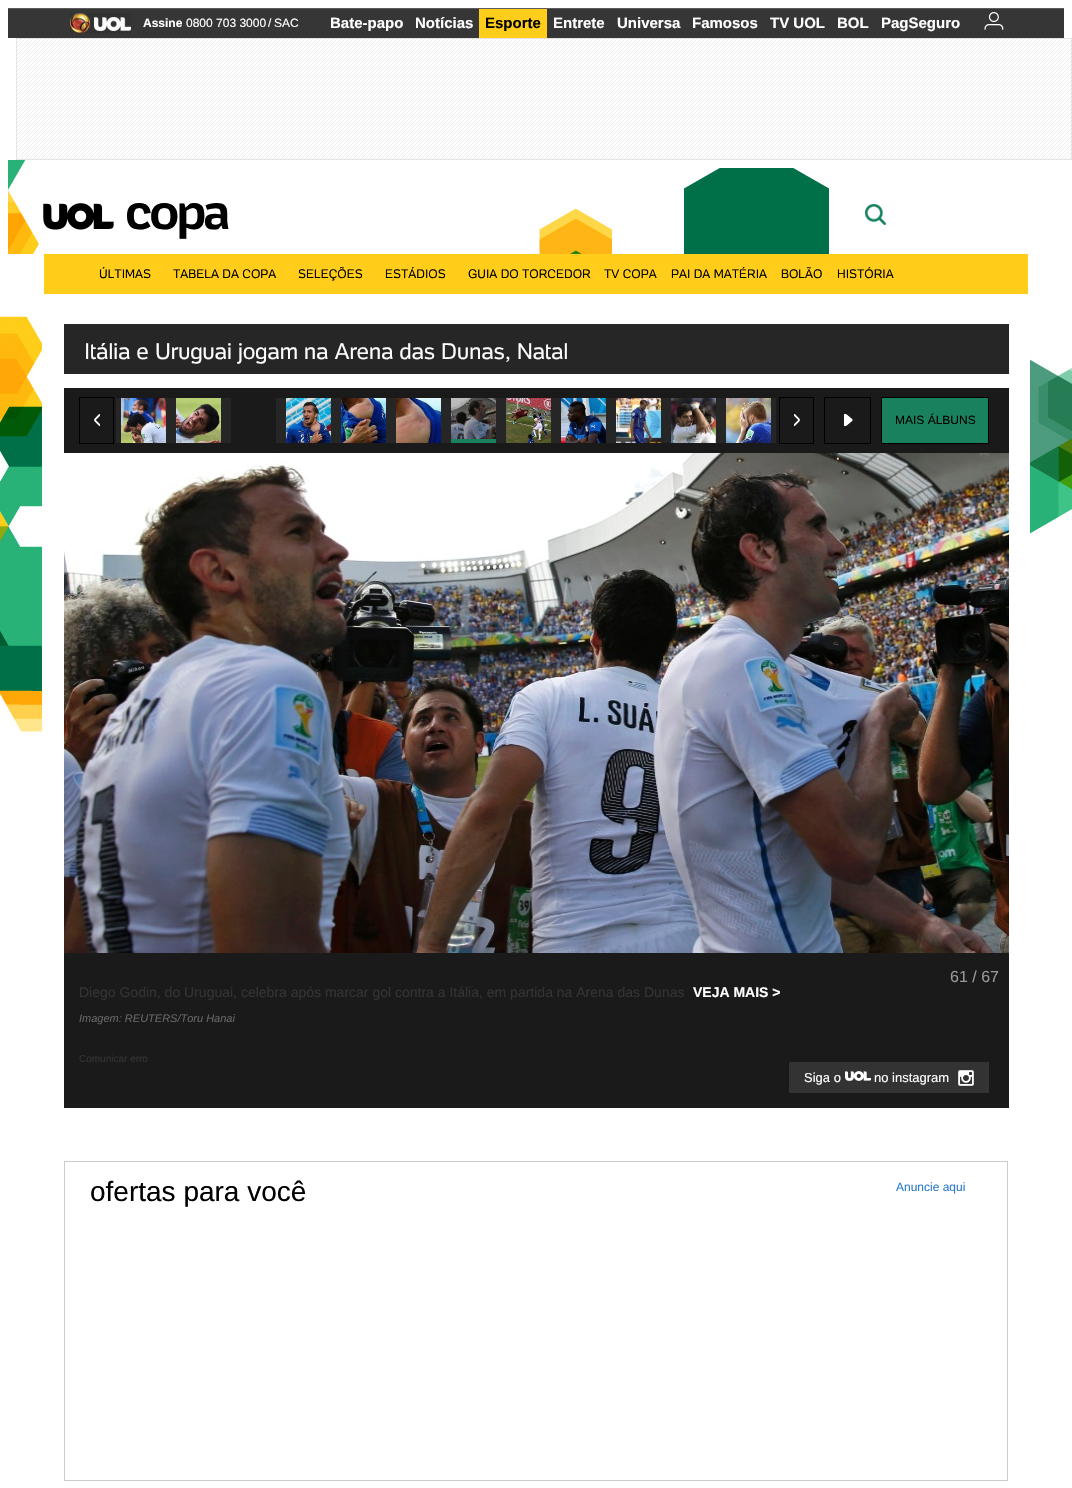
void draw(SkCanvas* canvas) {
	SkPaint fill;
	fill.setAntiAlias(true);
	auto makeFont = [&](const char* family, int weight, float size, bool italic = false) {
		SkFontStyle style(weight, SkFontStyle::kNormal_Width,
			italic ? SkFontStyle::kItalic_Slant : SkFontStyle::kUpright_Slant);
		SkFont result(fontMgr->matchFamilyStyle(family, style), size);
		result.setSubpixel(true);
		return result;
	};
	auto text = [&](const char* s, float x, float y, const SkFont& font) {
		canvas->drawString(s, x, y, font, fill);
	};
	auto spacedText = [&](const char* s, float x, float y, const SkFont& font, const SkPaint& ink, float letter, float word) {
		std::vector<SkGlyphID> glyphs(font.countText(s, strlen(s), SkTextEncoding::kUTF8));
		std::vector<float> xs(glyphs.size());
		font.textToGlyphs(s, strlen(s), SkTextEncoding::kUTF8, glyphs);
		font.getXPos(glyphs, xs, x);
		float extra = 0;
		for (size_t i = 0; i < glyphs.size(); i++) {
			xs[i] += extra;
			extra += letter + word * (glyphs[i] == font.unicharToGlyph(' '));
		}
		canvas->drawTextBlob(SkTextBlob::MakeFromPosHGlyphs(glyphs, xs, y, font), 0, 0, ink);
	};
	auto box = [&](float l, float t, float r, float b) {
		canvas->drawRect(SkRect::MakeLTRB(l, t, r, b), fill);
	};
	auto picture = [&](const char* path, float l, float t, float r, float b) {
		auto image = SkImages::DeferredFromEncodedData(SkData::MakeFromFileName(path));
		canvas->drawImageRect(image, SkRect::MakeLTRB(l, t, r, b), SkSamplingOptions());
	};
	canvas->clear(0xFFFFFFFF);
	picture("image0.png", 0, 313, 1072, 735);
	fill.setColor(0xFF363636);
	box(8, 9, 1064, 38);
	fill.setColor(0xFF5C5C5C);
	box(8, 8, 1064, 9);
	picture("image1.png", 70, 13, 131, 33);
	fill.setColor(0xFFFFCD1A);
	box(479, 9, 547, 38);
	picture("image2.png", 984, 12, 1004, 30);
	picture("image3.png", 17, 39, 1071, 159);
	fill.setStyle(SkPaint::kStroke_Style);
	fill.setStrokeWidth(1);
	fill.setColor(0xFFE4E4E4);
	canvas->drawRect(SkRect::MakeLTRB(16.5f, 38.5f, 1071.5f, 159.5f), fill);
	picture("image4.png", 8, 160, 829, 254);
	picture("image5.png", 43, 203, 114, 230);
	picture("image6.png", 865, 204, 886, 225);
	fill.setStyle(SkPaint::kFill_Style);
	fill.setColor(0xFFFFCD1A);
	box(44, 254, 1028, 294);
	fill.setColor(0xFFFFFFFF);
	box(42, 332, 1030, 735);
	fill.setColor(0xFF262626);
	box(64, 324, 1009, 374);
	fill.setColor(0xFF1A1A1A);
	box(64, 388, 1009, 1108);
	picture("image7.png", 94, 414, 100, 426);
	fill.setStyle(SkPaint::kStroke_Style);
	fill.setColor(0xFF000000);
	canvas->drawRect(SkRect::MakeLTRB(79.5f, 397.5f, 113.5f, 443.5f), fill);
	picture("image8.png", 116, 398, 776, 443);
	picture("image9.png", 121, 398, 166, 443);
	picture("image10.png", 176, 398, 221, 443);
	picture("image11.png", 286, 398, 331, 443);
	picture("image12.png", 341, 398, 386, 443);
	picture("image13.png", 396, 398, 441, 443);
	fill.setStyle(SkPaint::kFill_Style);
	fill.setColor(0xFF19815E);
	box(451, 439, 496, 443);
	picture("image14.png", 451, 398, 496, 439);
	picture("image15.png", 506, 398, 551, 443);
	picture("image16.png", 561, 398, 606, 443);
	picture("image17.png", 616, 398, 661, 443);
	picture("image18.png", 671, 398, 716, 443);
	picture("image19.png", 726, 398, 771, 443);
	picture("image20.png", 794, 414, 800, 426);
	fill.setStyle(SkPaint::kStroke_Style);
	fill.setColor(0xFF000000);
	canvas->drawRect(SkRect::MakeLTRB(779.5f, 397.5f, 813.5f, 443.5f), fill);
	picture("image21.png", 844, 414, 853, 426);
	canvas->drawRect(SkRect::MakeLTRB(824.5f, 397.5f, 870.5f, 443.5f), fill);
	fill.setStyle(SkPaint::kFill_Style);
	fill.setColor(0xFF19815E);
	canvas->drawRect(SkRect::MakeLTRB(881.5f, 397.5f, 988.5f, 443.5f), fill);
	fill.setStyle(SkPaint::kStroke_Style);
	fill.setColor(0xFF000000);
	canvas->drawRect(SkRect::MakeLTRB(881.5f, 397.5f, 988.5f, 443.5f), fill);
	picture("image22.png", 64, 453, 1009, 953);
	fill.setStyle(SkPaint::kFill_Style);
	fill.setColor(0xFF333333);
	box(789, 1062, 989, 1093);
	picture("image23.png", 845, 1071, 871, 1081);
	picture("image24.png", 958, 1070, 974, 1086);
	fill.setStyle(SkPaint::kStroke_Style);
	fill.setColor(0xFFCCCCCC);
	canvas->drawRect(SkRect::MakeLTRB(64.5f, 1161.5f, 1007.5f, 1480.5f), fill);
	auto font1 = makeFont("Liberation Sans", 700, 12);
	fill.setStyle(SkPaint::kFill_Style);
	fill.setColor(0xFFFFFFFF);
	text("Assine", 143, 27, font1);
	auto font2 = makeFont("Liberation Sans", 400, 12);
	text("0800 703 3000", 186, 27, font2);
	text("/", 268, 27, font2);
	text("SAC", 274, 27, font2);
	auto font3 = makeFont("Liberation Sans", 700, 15);
	text("Bate-papo", 330, 28, font3);
	text("Notícias", 415, 28, font3);
	fill.setColor(0xFF000000);
	text("Esporte", 485, 28, font3);
	fill.setColor(0xFFFFFFFF);
	text("Entrete", 553, 28, font3);
	text("Universa", 617, 28, font3);
	text("Famosos", 692, 28, font3);
	text("TV UOL", 770, 28, font3);
	text("BOL", 837, 28, font3);
	text("PagSeguro", 881, 28, font3);
	auto font4 = makeFont("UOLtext", 700, 49);
	fill.setColor(0xFF000000);
	spacedText("copa", 125, 229, font4, fill, -3, 0);
	auto font5 = makeFont("UOLtext", 400, 12);
	text("ÚLTIMAS", 99, 278, font5);
	text("TABELA DA COPA", 173, 278, font5);
	text("SELEÇÕES", 298, 278, font5);
	text("ESTÁDIOS", 385, 278, font5);
	text("GUIA DO TORCEDOR", 468, 278, font5);
	text("TV COPA", 604, 278, font5);
	text("PAI DA MATÉRIA", 671, 278, font5);
	text("BOLÃO", 781, 278, font5);
	text("HISTÓRIA", 837, 278, font5);
	auto font6 = makeFont("UOLtext", 400, 22);
	fill.setColor(0xFFFFFFFF);
	text("Itália e Uruguai jogam na Arena das Dunas, Natal", 84, 359, font6);
	fill.setColor(0xFF000000);
	text("MAIS ÁLBUNS", 895, 424, font2);
	auto font7 = makeFont("Liberation Sans", 400, 16);
	fill.setColor(0xFF999999);
	text("61 / 67", 950, 982, font7);
	auto font8 = makeFont("Liberation Sans", 400, 14);
	fill.setColor(0xFF333333);
	text("Diego Godin, do Uruguai, celebra após marcar gol contra a Itália, em partida na Arena das Dunas", 79, 997, font8);
	auto font9 = makeFont("Liberation Sans", 700, 14);
	fill.setColor(0xFFFFFFFF);
	text("VEJA MAIS >", 693, 997, font9);
	auto font10 = makeFont("Liberation Sans", 400, 11, true);
	fill.setColor(0xFF666666);
	text("Imagem: REUTERS/Toru Hanai", 79, 1022, font10);
	auto font11 = makeFont("Liberation Sans", 400, 10);
	fill.setColor(0xFF333333);
	text("Comunicar erro", 79, 1062, font11);
	auto font12 = makeFont("Liberation Sans", 400, 13);
	fill.setColor(0xFFFFFFFF);
	text("Siga o", 804, 1082, font12);
	text("no instagram", 874, 1082, font12);
	auto font13 = makeFont("Liberation Sans", 400, 28);
	fill.setColor(0xFF000000);
	text("ofertas para você", 90, 1201, font13);
	fill.setColor(0xFF297ACC);
	text("Anuncie aqui", 896, 1191, font2);
}
